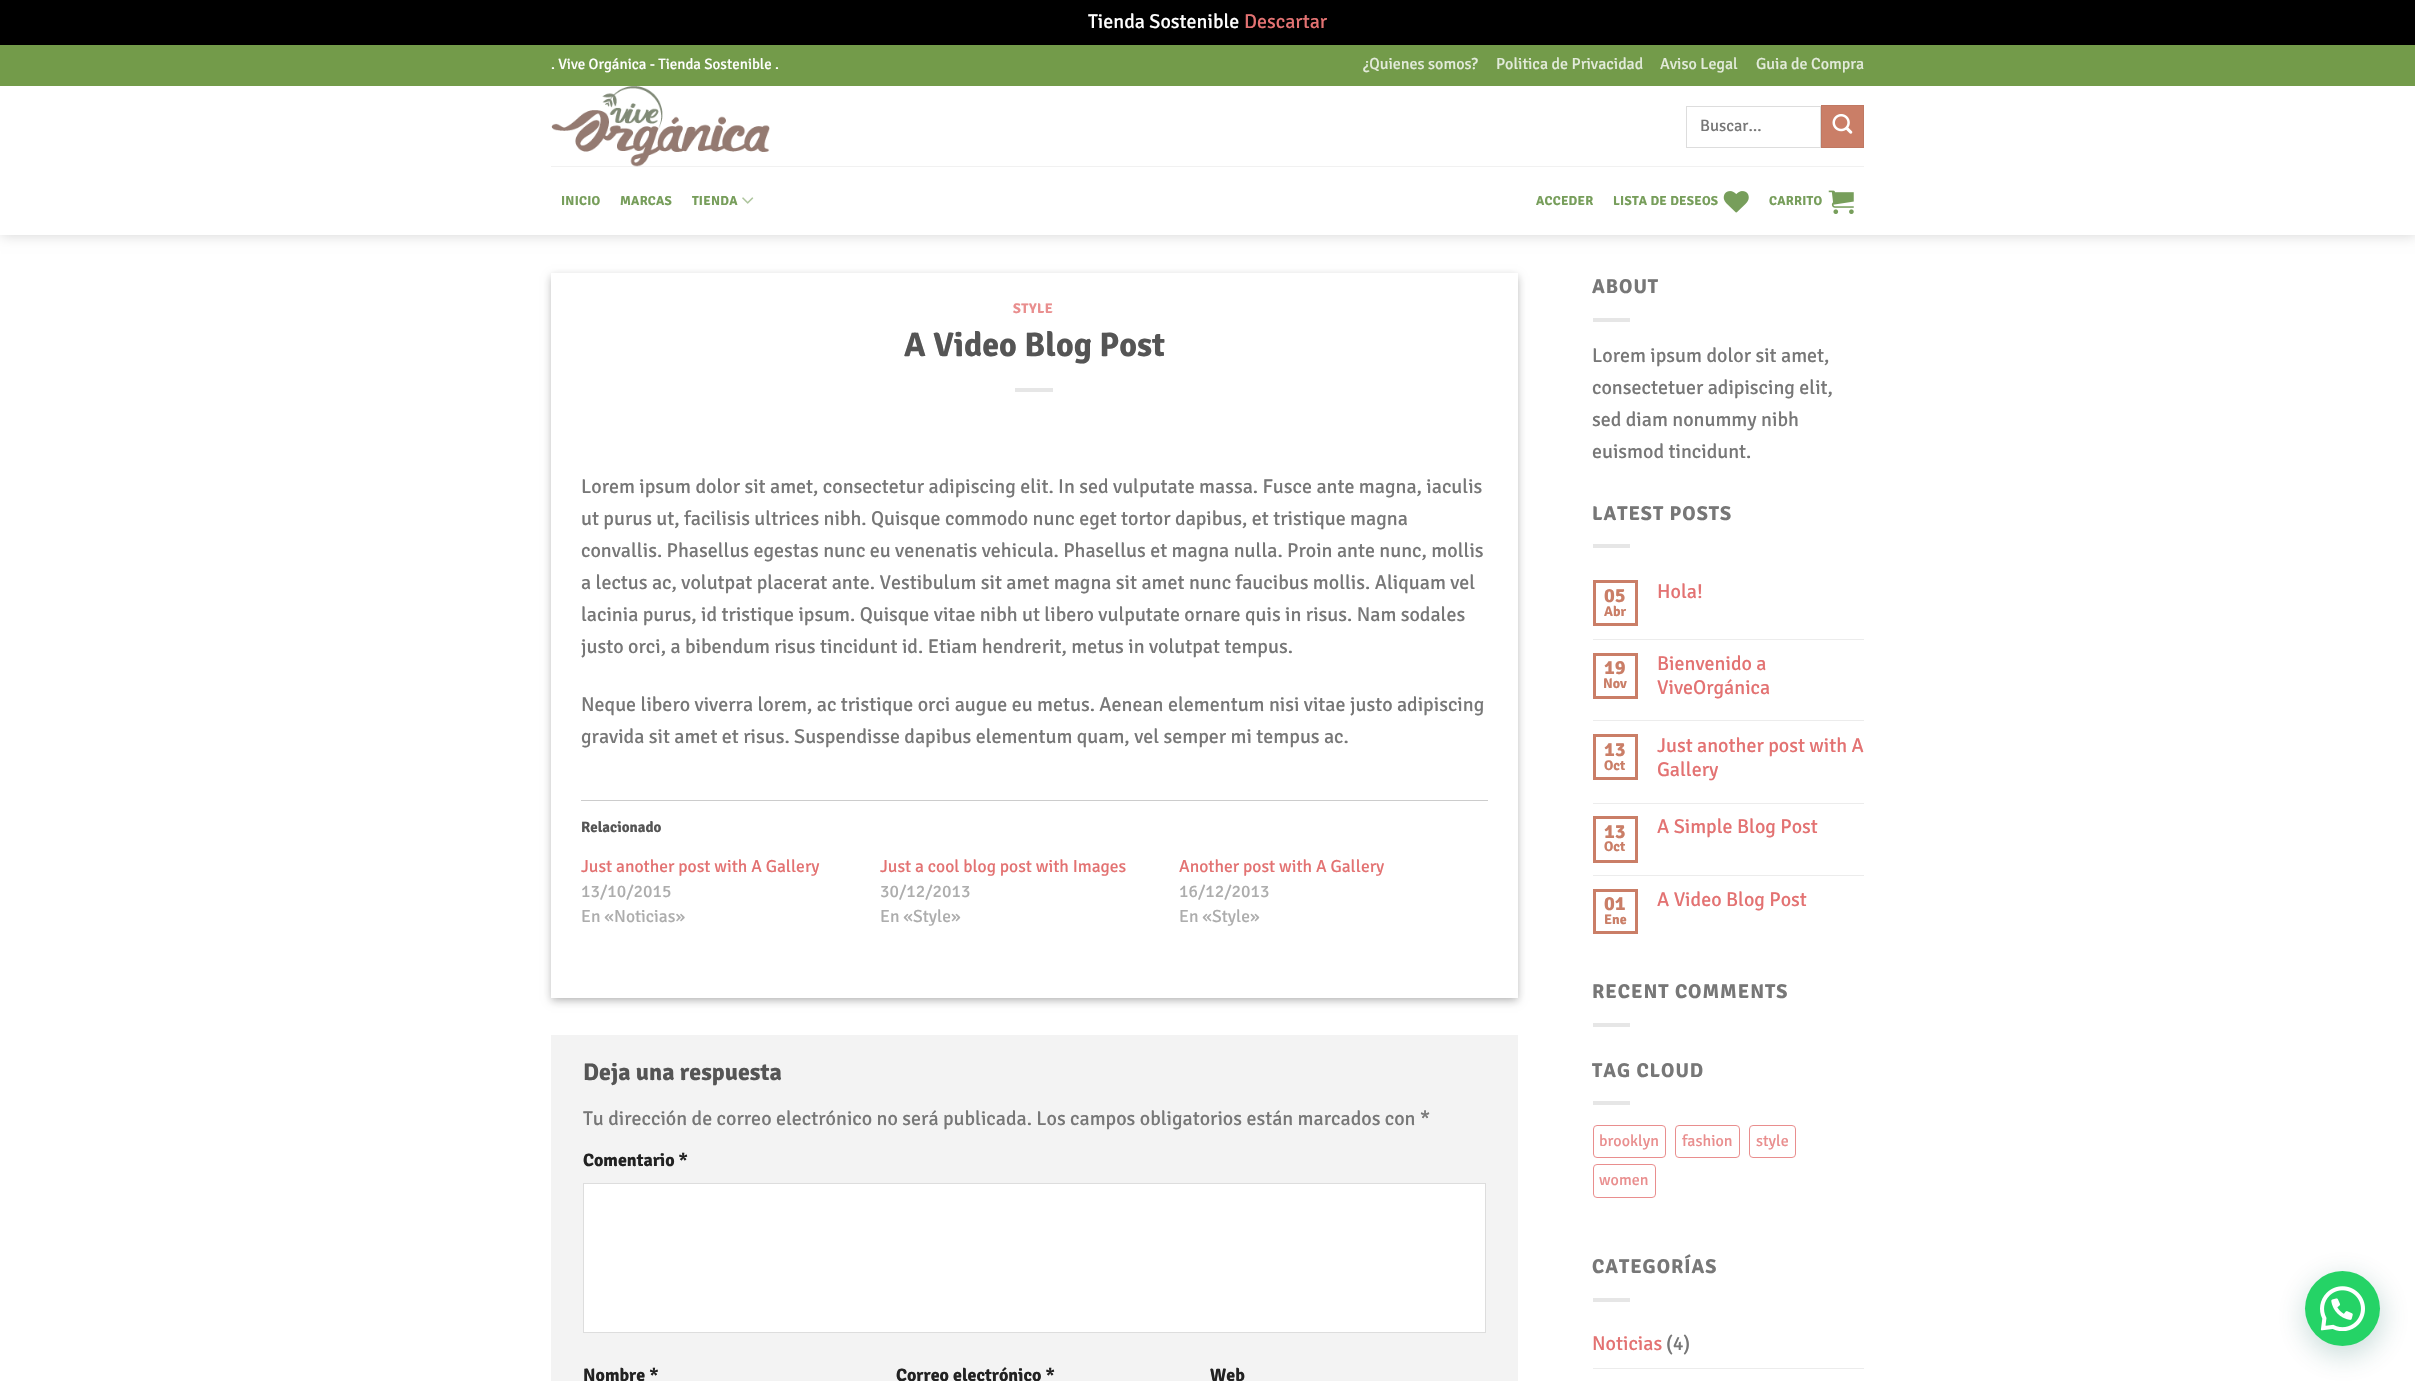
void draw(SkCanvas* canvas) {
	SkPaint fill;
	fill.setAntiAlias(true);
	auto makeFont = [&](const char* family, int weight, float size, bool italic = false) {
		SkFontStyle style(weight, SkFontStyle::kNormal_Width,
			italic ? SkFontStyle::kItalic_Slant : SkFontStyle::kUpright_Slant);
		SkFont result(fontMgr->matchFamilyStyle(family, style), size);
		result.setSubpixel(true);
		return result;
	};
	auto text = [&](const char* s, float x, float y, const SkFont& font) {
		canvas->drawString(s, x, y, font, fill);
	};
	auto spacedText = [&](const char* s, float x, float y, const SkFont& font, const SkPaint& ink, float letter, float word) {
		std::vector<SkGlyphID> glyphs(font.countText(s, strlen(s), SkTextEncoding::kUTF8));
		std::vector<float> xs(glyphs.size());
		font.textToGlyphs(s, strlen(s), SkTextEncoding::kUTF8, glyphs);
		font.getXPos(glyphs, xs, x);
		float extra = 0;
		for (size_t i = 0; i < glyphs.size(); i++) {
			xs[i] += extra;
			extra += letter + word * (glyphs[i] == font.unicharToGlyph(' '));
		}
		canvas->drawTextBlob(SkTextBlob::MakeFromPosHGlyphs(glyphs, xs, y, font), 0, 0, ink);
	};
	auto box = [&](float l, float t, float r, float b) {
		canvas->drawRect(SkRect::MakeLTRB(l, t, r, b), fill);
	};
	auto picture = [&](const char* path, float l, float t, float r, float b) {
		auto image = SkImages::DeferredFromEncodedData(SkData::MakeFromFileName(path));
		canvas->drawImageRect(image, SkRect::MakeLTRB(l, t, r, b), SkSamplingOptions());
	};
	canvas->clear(0xFF000000);
	fill.setColor(0xFFFFFFFF);
	box(0, 86, 2415, 1381);
	canvas->save();
	canvas->clipPath(SkPathBuilder(SkPathFillType::kEvenOdd).moveTo(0, 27).lineTo(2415, 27).lineTo(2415, 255).lineTo(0, 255).close().moveTo(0, 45).lineTo(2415, 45).lineTo(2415, 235).lineTo(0, 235).close().detach(), true);
	fill.setColor(0x26000000);
	fill.setMaskFilter(SkMaskFilter::MakeBlur(kNormal_SkBlurStyle, 6));
	canvas->drawRect(SkRect::MakeLTRB(1, 46, 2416, 236), fill);
	fill.setMaskFilter(nullptr);
	canvas->restore();
	fill.setColor(0xFF739B4A);
	box(0, 45, 2415, 86);
	picture("image0.png", 551, 86, 770, 167);
	fill.setStyle(SkPaint::kStroke_Style);
	fill.setStrokeWidth(1);
	fill.setColor(0xFFDDDDDD);
	canvas->drawRect(SkRect::MakeLTRB(1686.5f, 106.5f, 1820.5f, 147.5f), fill);
	fill.setStyle(SkPaint::kFill_Style);
	fill.setColor(0xFFCA7E67);
	canvas->drawRect(SkRect::MakeLTRB(1821.5f, 105.5f, 1863.5f, 147.5f), fill);
	fill.setStyle(SkPaint::kStroke_Style);
	fill.setColor(0xFFC07862);
	canvas->drawRect(SkRect::MakeLTRB(1821.5f, 105.5f, 1863.5f, 147.5f), fill);
	picture("image1.png", 1832, 114, 1853, 134);
	fill.setStyle(SkPaint::kFill_Style);
	fill.setColor(0x1A777777);
	box(551, 166, 1864, 167);
	picture("image2.png", 742, 197, 754, 204);
	picture("image3.png", 1723, 191, 1749, 213);
	picture("image4.png", 1828, 190, 1854, 214);
	fill.setColor(0x3B000000);
	fill.setMaskFilter(SkMaskFilter::MakeBlur(kNormal_SkBlurStyle, 4));
	canvas->drawRect(SkRect::MakeLTRB(551, 276, 1518, 1001), fill);
	fill.setMaskFilter(nullptr);
	fill.setColor(0x29000000);
	fill.setMaskFilter(SkMaskFilter::MakeBlur(kNormal_SkBlurStyle, 4));
	canvas->drawRect(SkRect::MakeLTRB(556, 281, 1513, 996), fill);
	fill.setMaskFilter(nullptr);
	fill.setColor(0xFFFFFFFF);
	box(551, 273, 1518, 998);
	fill.setColor(0xFFE6E6E6);
	box(1015, 388, 1053, 392);
	fill.setColor(0xFFCCCCCC);
	box(581, 800, 1488, 801);
	fill.setColor(0xFFF3F3F3);
	box(551, 1035, 1518, 1381);
	fill.setColor(0xFFFFFFFF);
	canvas->drawRect(SkRect::MakeLTRB(583.5f, 1183.5f, 1485.5f, 1332.5f), fill);
	fill.setStyle(SkPaint::kStroke_Style);
	fill.setColor(0xFFDDDDDD);
	canvas->drawRect(SkRect::MakeLTRB(583.5f, 1183.5f, 1485.5f, 1332.5f), fill);
	fill.setStyle(SkPaint::kFill_Style);
	fill.setColor(0xFFE6E6E6);
	box(1593, 318, 1630, 322);
	box(1593, 544, 1630, 548);
	fill.setStyle(SkPaint::kStroke_Style);
	fill.setStrokeWidth(3);
	fill.setColor(0xFFCA7E67);
	canvas->drawRect(SkRect::MakeLTRB(1594.5f, 581.5f, 1636.5f, 624.5f), fill);
	fill.setStyle(SkPaint::kFill_Style);
	fill.setColor(0xFFECECEC);
	box(1593, 639, 1864, 640);
	fill.setStyle(SkPaint::kStroke_Style);
	fill.setColor(0xFFCA7E67);
	canvas->drawRect(SkRect::MakeLTRB(1594.5f, 654.5f, 1636.5f, 697.5f), fill);
	fill.setStyle(SkPaint::kFill_Style);
	fill.setColor(0xFFECECEC);
	box(1593, 720, 1864, 721);
	fill.setStyle(SkPaint::kStroke_Style);
	fill.setColor(0xFFCA7E67);
	canvas->drawRect(SkRect::MakeLTRB(1594.5f, 735.5f, 1636.5f, 778.5f), fill);
	fill.setStyle(SkPaint::kFill_Style);
	fill.setColor(0xFFECECEC);
	box(1593, 803, 1864, 804);
	fill.setStyle(SkPaint::kStroke_Style);
	fill.setColor(0xFFCA7E67);
	canvas->drawRect(SkRect::MakeLTRB(1594.5f, 817.5f, 1636.5f, 861.5f), fill);
	fill.setStyle(SkPaint::kFill_Style);
	fill.setColor(0xFFECECEC);
	box(1593, 875, 1864, 876);
	fill.setStyle(SkPaint::kStroke_Style);
	fill.setColor(0xFFCA7E67);
	canvas->drawRect(SkRect::MakeLTRB(1594.5f, 890.5f, 1636.5f, 932.5f), fill);
	fill.setStyle(SkPaint::kFill_Style);
	fill.setColor(0xFFE6E6E6);
	box(1593, 1023, 1630, 1027);
	box(1593, 1101, 1630, 1105);
	fill.setStyle(SkPaint::kStroke_Style);
	fill.setStrokeWidth(1);
	fill.setColor(0xFFE98E8E);
	canvas->drawRoundRect(SkRect::MakeLTRB(1593.5f, 1125.5f, 1665.5f, 1157.5f), 3.5f, 3.5f, fill);
	canvas->drawRoundRect(SkRect::MakeLTRB(1675.5f, 1125.5f, 1739.5f, 1157.5f), 3.5f, 3.5f, fill);
	canvas->drawRoundRect(SkRect::MakeLTRB(1749.5f, 1125.5f, 1795.5f, 1157.5f), 3.5f, 3.5f, fill);
	canvas->drawRoundRect(SkRect::MakeLTRB(1593.5f, 1164.5f, 1655.5f, 1197.5f), 3.5f, 3.5f, fill);
	fill.setStyle(SkPaint::kFill_Style);
	fill.setColor(0xFFE6E6E6);
	box(1593, 1298, 1630, 1302);
	fill.setColor(0xFFECECEC);
	box(1593, 1368, 1864, 1369);
	fill.setColor(0x3D075E54);
	fill.setMaskFilter(SkMaskFilter::MakeBlur(kNormal_SkBlurStyle, 15));
	canvas->drawRoundRect(SkRect::MakeLTRB(2306, 1279, 2381, 1354), 37.5f, 37.5f, fill);
	fill.setMaskFilter(nullptr);
	fill.setColor(0xFF25D366);
	canvas->drawCircle(2342.5f, 1308.5f, 37.5f, fill);
	picture("image5.png", 2320, 1286, 2365, 1331);
	auto font1 = makeFont("Signika", 400, 20);
	fill.setColor(0xFFFFFFFF);
	text("Tienda Sostenible", 1088, 28, font1);
	fill.setColor(0xFFE37272);
	text("Descartar", 1244, 28, font1);
	auto font2 = makeFont("Signika", 400, 15);
	fill.setColor(0xFFFFFFFF);
	text(". Vive Orgánica - Tienda Sostenible .", 551, 69, font2);
	auto font3 = makeFont("Signika", 400, 16);
	fill.setColor(0xFFE3EBDB);
	text("¿Quienes somos?", 1363, 69, font3);
	text("Politica de Privacidad", 1496, 69, font3);
	text("Aviso Legal", 1660, 69, font3);
	text("Guia de Compra", 1756, 69, font3);
	auto font4 = makeFont("Signika", 400, 16.5f);
	fill.setColor(0xFF777777);
	text("Buscar…", 1700, 131, font4);
	auto font5 = makeFont("Signika", 700, 13);
	fill.setColor(0xFF779E5B);
	spacedText("INICIO", 561, 205, font5, fill, 0.25f, 0);
	spacedText("MARCAS", 620, 205, font5, fill, 0.25f, 0);
	spacedText("TIENDA", 692, 205, font5, fill, 0.25f, 0);
	spacedText("ACCEDER", 1536, 205, font5, fill, 0.25f, 0);
	spacedText("LISTA DE DESEOS", 1613, 205, font5, fill, 0.25f, 0);
	spacedText("CARRITO", 1769, 205, font5, fill, 0.25f, 0);
	auto font6 = makeFont("Signika", 700, 14);
	fill.setColor(0xFFE98E8E);
	spacedText("STYLE", 1013, 313, font6, fill, 0.5f, 0);
	auto font7 = makeFont("Signika", 700, 34);
	fill.setColor(0xFF555555);
	text("A Video Blog Post", 904, 356, font7);
	fill.setColor(0xFF777777);
	text("Lorem ipsum dolor sit amet, consectetur adipiscing elit. In sed vulputate massa. Fusce ante magna, iaculis", 581, 493, font1);
	text("ut purus ut, facilisis ultrices nibh. Quisque commodo nunc eget tortor dapibus, et tristique magna", 581, 525, font1);
	text("convallis. Phasellus egestas nunc eu venenatis vehicula. Phasellus et magna nulla. Proin ante nunc, mollis", 581, 557, font1);
	text("a lectus ac, volutpat placerat ante. Vestibulum sit amet magna sit amet nunc faucibus mollis. Aliquam vel", 581, 589, font1);
	text("lacinia purus, id tristique ipsum. Quisque vitae nibh ut libero vulputate ornare quis in risus. Nam sodales", 581, 621, font1);
	text("justo orci, a bibendum risus tincidunt id. Etiam hendrerit, metus in volutpat tempus.", 581, 653, font1);
	text("Neque libero viverra lorem, ac tristique orci augue eu metus. Aenean elementum nisi vitae justo adipiscing", 581, 711, font1);
	text("gravida sit amet et risus. Suspendisse dapibus elementum quam, vel semper mi tempus ac.", 581, 743, font1);
	auto font8 = makeFont("Signika", 700, 15);
	fill.setColor(0xFF555555);
	text("Relacionado", 581, 832, font8);
	auto font9 = makeFont("Signika", 400, 17.5f);
	fill.setColor(0xFFE37272);
	text("Just another post with A Gallery", 581, 872, font9);
	fill.setColor(0xFFADADAD);
	text("13/10/2015", 581, 897, font9);
	text("En «Noticias»", 581, 922, font9);
	fill.setColor(0xFFE37272);
	text("Just a cool blog post with Images", 880, 872, font9);
	fill.setColor(0xFFADADAD);
	text("30/12/2013", 880, 897, font9);
	text("En «Style»", 880, 922, font9);
	fill.setColor(0xFFE37272);
	text("Another post with A Gallery", 1179, 872, font9);
	fill.setColor(0xFFADADAD);
	text("16/12/2013", 1179, 897, font9);
	text("En «Style»", 1179, 922, font9);
	auto font10 = makeFont("Signika", 700, 24);
	fill.setColor(0xFF555555);
	text("Deja una respuesta", 583, 1080, font10);
	fill.setColor(0xFF777777);
	text("Tu dirección de correo electrónico no será publicada. Los campos obligatorios están marcados con *", 583, 1125, font1);
	auto font11 = makeFont("Signika", 700, 18);
	fill.setColor(0xFF222222);
	text("Comentario *", 583, 1166, font11);
	text("Nombre *", 583, 1381, font11);
	text("Correo electrónico *", 896, 1381, font11);
	text("Web", 1210, 1381, font11);
	auto font12 = makeFont("Signika", 700, 20);
	fill.setColor(0xFF777777);
	spacedText("ABOUT", 1592, 293, font12, fill, 1, 0);
	text("Lorem ipsum dolor sit amet,", 1592, 362, font1);
	text("consectetuer adipiscing elit,", 1592, 394, font1);
	text("sed diam nonummy nibh", 1592, 426, font1);
	text("euismod tincidunt.", 1592, 458, font1);
	spacedText("LATEST POSTS", 1592, 520, font12, fill, 1, 0);
	fill.setColor(0xFFCA7E67);
	text("05", 1604, 602, font12);
	text("Abr", 1604, 616, font6);
	fill.setColor(0xFFE37272);
	text("Hola!", 1657, 598, font1);
	fill.setColor(0xFFCA7E67);
	text("19", 1604, 674, font12);
	text("Nov", 1603, 688, font6);
	fill.setColor(0xFFE37272);
	text("Bienvenido a", 1657, 670, font1);
	text("ViveOrgánica", 1657, 694, font1);
	fill.setColor(0xFFCA7E67);
	text("13", 1604, 756, font12);
	text("Oct", 1604, 770, font6);
	fill.setColor(0xFFE37272);
	text("Just another post with A", 1657, 752, font1);
	text("Gallery", 1657, 776, font1);
	fill.setColor(0xFFCA7E67);
	text("13", 1604, 838, font12);
	text("Oct", 1604, 851, font6);
	fill.setColor(0xFFE37272);
	text("A Simple Blog Post", 1657, 833, font1);
	fill.setColor(0xFFCA7E67);
	text("01", 1604, 910, font12);
	text("Ene", 1604, 924, font6);
	fill.setColor(0xFFE37272);
	text("A Video Blog Post", 1657, 906, font1);
	fill.setColor(0xFF777777);
	spacedText("RECENT COMMENTS", 1592, 998, font12, fill, 1, 0);
	spacedText("TAG CLOUD", 1592, 1077, font12, fill, 1, 0);
	fill.setColor(0xFFE98E8E);
	text("brooklyn", 1599, 1146, font3);
	text("fashion", 1682, 1146, font3);
	text("style", 1756, 1146, font3);
	text("women", 1599, 1185, font3);
	fill.setColor(0xFF777777);
	spacedText("CATEGORÍAS", 1592, 1273, font12, fill, 1, 0);
	fill.setColor(0xFFE37272);
	text("Noticias", 1592, 1350, font1);
	fill.setColor(0xFF777777);
	text("(4)", 1666, 1350, font1);
}
